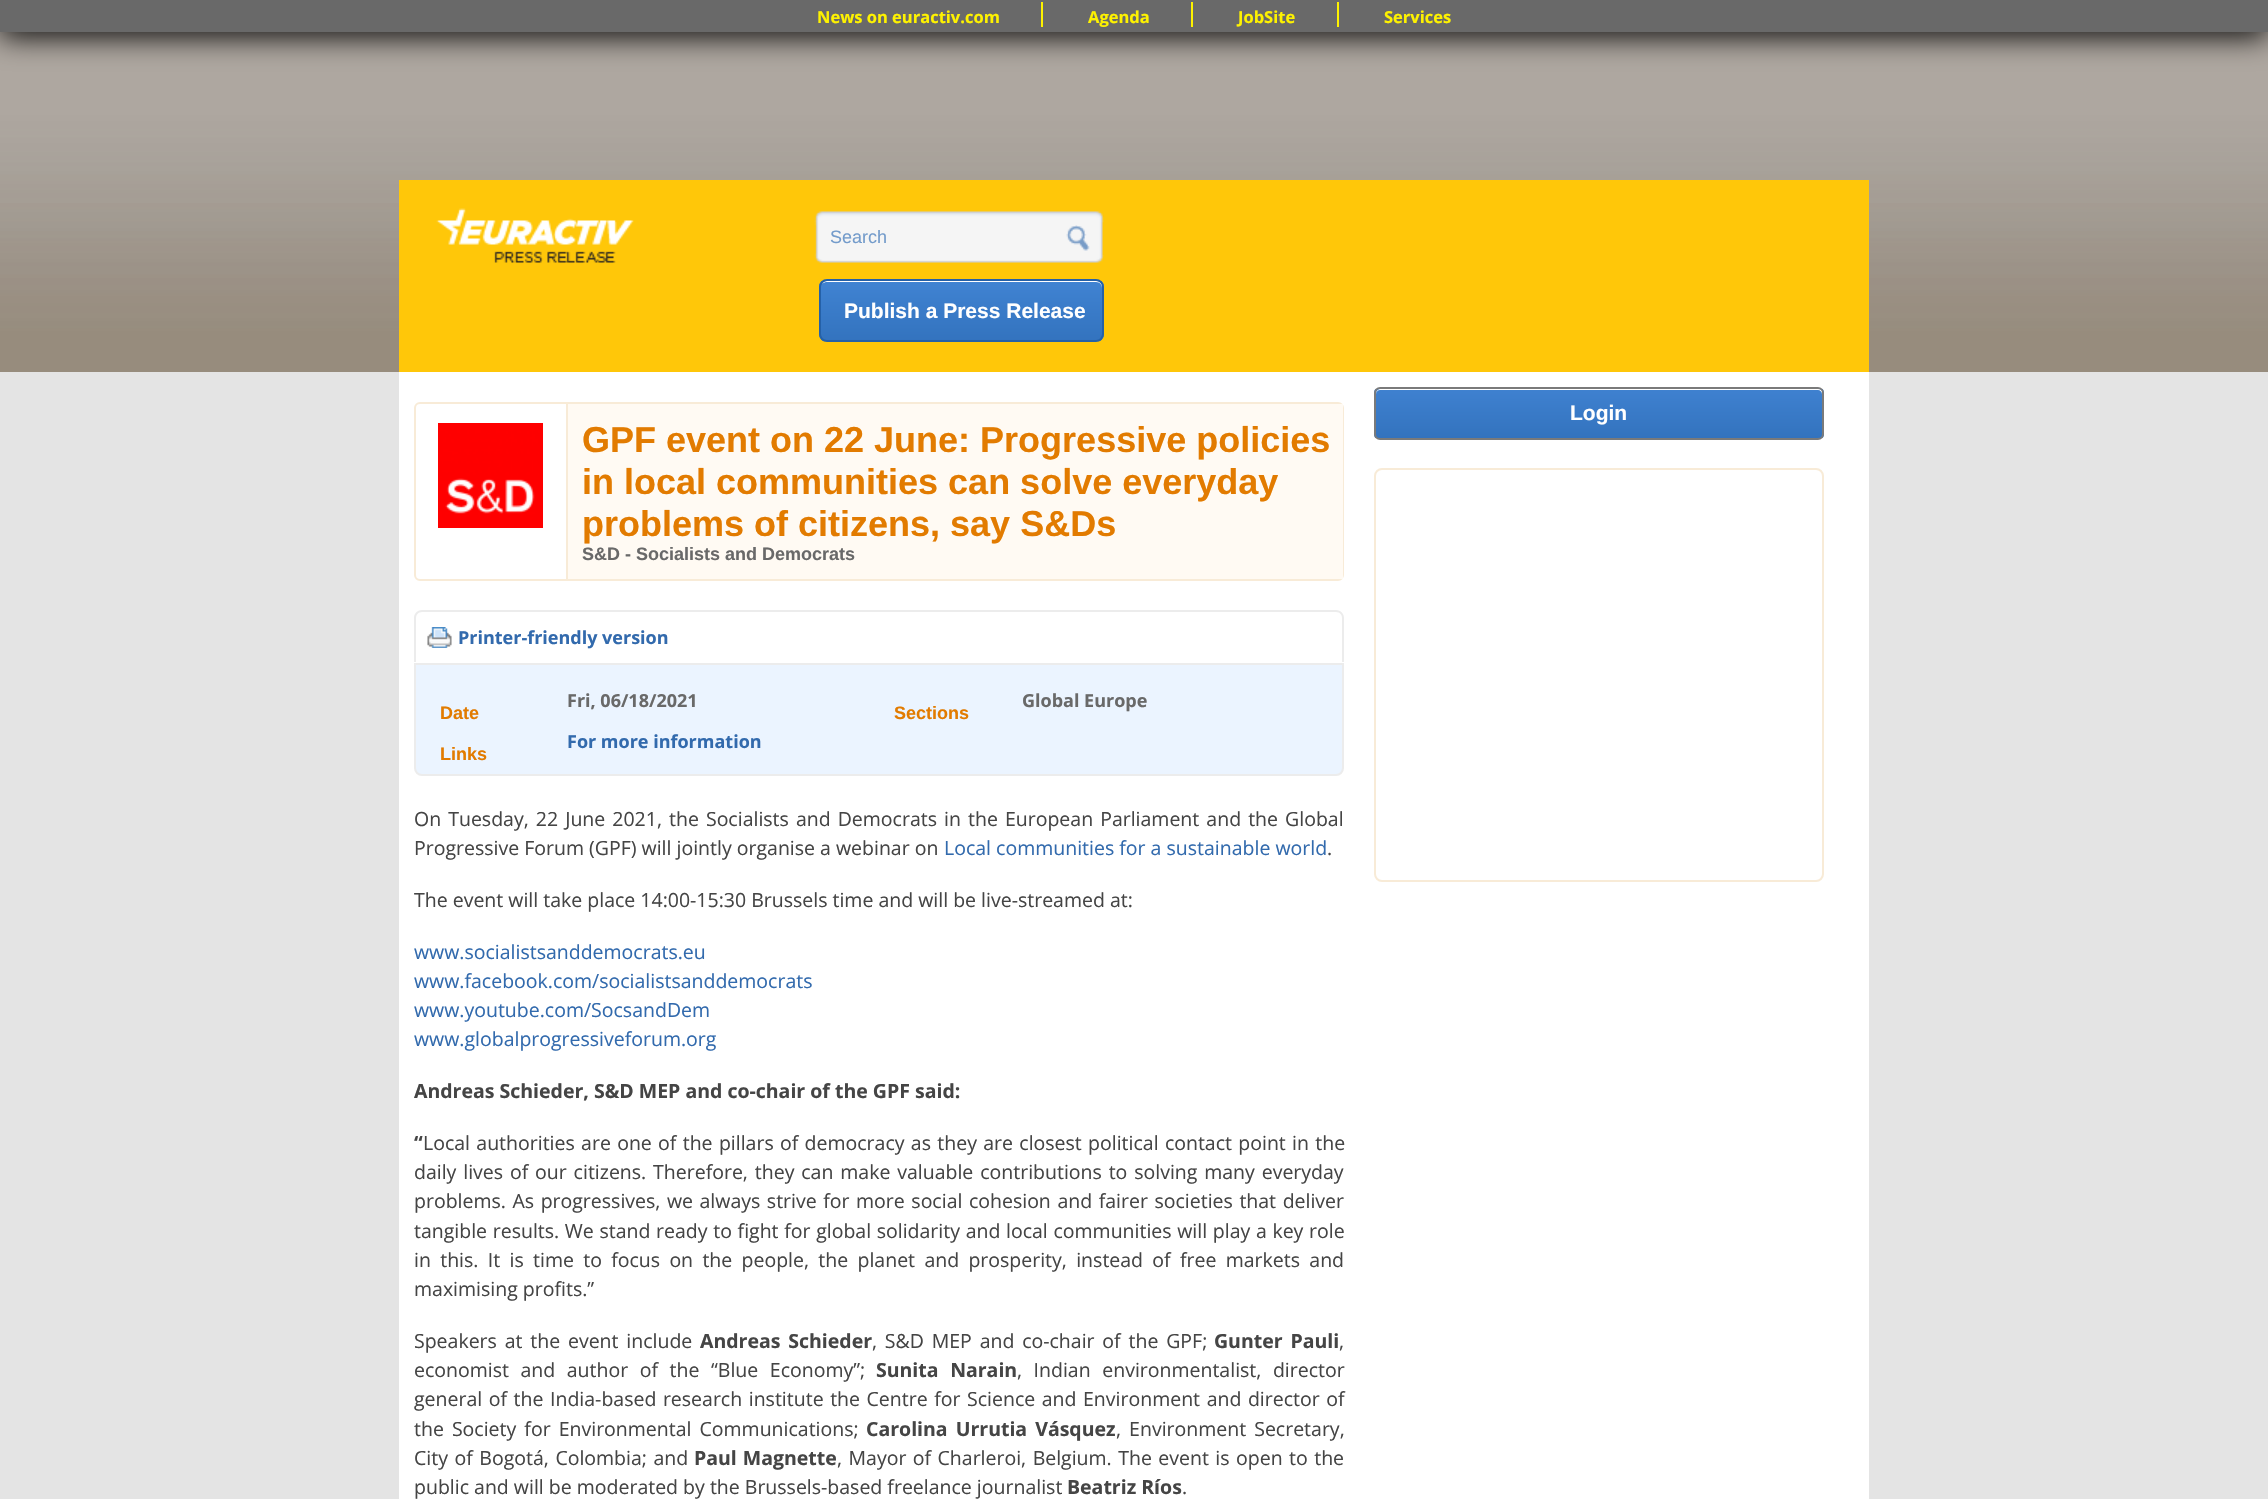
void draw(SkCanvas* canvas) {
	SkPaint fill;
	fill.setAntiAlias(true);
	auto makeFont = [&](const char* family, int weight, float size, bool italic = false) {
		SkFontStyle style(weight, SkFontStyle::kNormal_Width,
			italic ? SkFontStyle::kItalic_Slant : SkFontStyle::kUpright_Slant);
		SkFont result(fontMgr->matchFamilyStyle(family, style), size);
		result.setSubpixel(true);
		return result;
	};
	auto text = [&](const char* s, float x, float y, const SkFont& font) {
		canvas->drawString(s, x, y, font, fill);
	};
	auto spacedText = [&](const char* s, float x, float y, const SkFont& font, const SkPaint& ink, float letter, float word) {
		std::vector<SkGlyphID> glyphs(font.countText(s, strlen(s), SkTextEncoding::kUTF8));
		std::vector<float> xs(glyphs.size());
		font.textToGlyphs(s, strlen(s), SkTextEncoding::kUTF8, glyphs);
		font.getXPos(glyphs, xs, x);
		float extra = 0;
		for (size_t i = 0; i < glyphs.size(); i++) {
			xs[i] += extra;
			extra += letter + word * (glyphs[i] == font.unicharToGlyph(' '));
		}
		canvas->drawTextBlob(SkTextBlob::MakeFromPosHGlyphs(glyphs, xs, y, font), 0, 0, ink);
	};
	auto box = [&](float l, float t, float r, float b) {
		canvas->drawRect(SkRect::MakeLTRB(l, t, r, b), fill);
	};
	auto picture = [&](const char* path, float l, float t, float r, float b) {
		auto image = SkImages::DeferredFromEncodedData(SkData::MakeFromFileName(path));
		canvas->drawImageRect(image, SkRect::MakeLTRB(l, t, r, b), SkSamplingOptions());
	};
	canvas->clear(0xFFFFFFFF);
	picture("image0.png", 0, 32, 2268, 372);
	fill.setColor(0xFF000000);
	fill.setMaskFilter(SkMaskFilter::MakeBlur(kNormal_SkBlurStyle, 15));
	canvas->drawRect(SkRect::MakeLTRB(0, 5, 2268, 36), fill);
	fill.setMaskFilter(nullptr);
	fill.setColor(0xFF696969);
	box(0, 0, 2268, 32);
	fill.setColor(0xFFFEF200);
	box(1041, 2, 1043, 27);
	box(1191, 2, 1193, 27);
	box(1337, 2, 1339, 27);
	fill.setColor(0xFFFFC709);
	box(399, 180, 1869, 372);
	picture("image1.png", 436, 208, 634, 263);
	picture("image2.png", 814, 211, 1104, 263);
	picture("image3.png", 1066, 225, 1090, 251);
	canvas->save();
	canvas->clipPath(SkPathBuilder().moveTo(827, 279).lineTo(1096, 279).cubicTo(1100.5f, 279, 1104, 282.5f, 1104, 287).lineTo(1104, 334).cubicTo(1104, 338.5f, 1100.5f, 342, 1096, 342).lineTo(827, 342).cubicTo(822.5f, 342, 819, 338.5f, 819, 334).lineTo(819, 287).cubicTo(819, 282.5f, 822.5f, 279, 827, 279).close().detach(), true);
	{
		const SkColor colors[] = {0xFF4083D2, 0xFF3373BE};
		const float stops[] = {0, 1};
		const SkPoint ends[] = {{962, 281}, {962, 341}};
		fill.setShader(SkGradientShader::MakeLinear(ends, colors, stops, 2, SkTileMode::kClamp));
		fill.setAlpha(255);
	}
	box(819, 281, 1104, 341);
	canvas->restore();
	fill.setShader(nullptr);
	fill.setColor(0xFFFFFFFF);
	canvas->drawPath(SkPathBuilder().moveTo(826, 282).lineTo(1096, 282).cubicTo(1100, 282, 1102, 285, 1102, 288).lineTo(1102, 336).cubicTo(1102, 337, 1102, 338, 1101, 339).cubicTo(1102, 338, 1103, 337, 1103, 335).lineTo(1103, 287).cubicTo(1103, 284, 1100, 281, 1097, 281).lineTo(827, 281).cubicTo(825, 281, 823, 282, 822, 284).cubicTo(823, 283, 825, 282, 826, 282).close().detach(), fill);
	fill.setStyle(SkPaint::kStroke_Style);
	fill.setStrokeWidth(2);
	fill.setColor(0xFF2561A8);
	canvas->drawRoundRect(SkRect::MakeLTRB(820, 280, 1103, 341), 7, 7, fill);
	fill.setStyle(SkPaint::kFill_Style);
	fill.setColor(0xFFE4E4E4);
	box(0, 372, 2268, 1499);
	fill.setColor(0xFFFFFFFF);
	box(399, 372, 1869, 1499);
	canvas->save();
	canvas->clipPath(SkPathBuilder().moveTo(1380, 387).lineTo(1818, 387).cubicTo(1821.5f, 387, 1824, 389.5f, 1824, 393).lineTo(1824, 434).cubicTo(1824, 437.5f, 1821.5f, 440, 1818, 440).lineTo(1380, 440).cubicTo(1376.5f, 440, 1374, 437.5f, 1374, 434).lineTo(1374, 393).cubicTo(1374, 389.5f, 1376.5f, 387, 1380, 387).close().detach(), true);
	{
		const SkColor colors[] = {0xFF3F81D0, 0xFF3373BE};
		const float stops[] = {0, 1};
		const SkPoint ends[] = {{1599, 389}, {1599, 438}};
		fill.setShader(SkGradientShader::MakeLinear(ends, colors, stops, 2, SkTileMode::kClamp));
		fill.setAlpha(255);
	}
	box(1374, 389, 1824, 438);
	canvas->restore();
	fill.setShader(nullptr);
	fill.setColor(0xFFFFFFFF);
	canvas->drawPath(SkPathBuilder().moveTo(1380, 390).lineTo(1818, 390).cubicTo(1820, 390, 1822, 392, 1822, 394).lineTo(1822, 436).cubicTo(1823, 435, 1823, 434, 1823, 433).lineTo(1823, 394).cubicTo(1823, 391, 1821, 389, 1818, 389).lineTo(1381, 389).cubicTo(1378, 389, 1376, 391, 1376, 394).cubicTo(1376, 392, 1378, 390, 1380, 390).close().detach(), fill);
	fill.setStyle(SkPaint::kStroke_Style);
	fill.setColor(0xFF7A7A7A);
	canvas->drawRoundRect(SkRect::MakeLTRB(1375, 388, 1823, 439), 5, 5, fill);
	fill.setColor(0xFFF8EBD7);
	canvas->drawRoundRect(SkRect::MakeLTRB(1375, 469, 1823, 881), 7, 7, fill);
	canvas->drawRoundRect(SkRect::MakeLTRB(415, 403, 1343, 580), 5, 5, fill);
	picture("image4.png", 438, 423, 543, 528);
	fill.setStyle(SkPaint::kFill_Style);
	fill.setColor(0xFFFFFAF3);
	box(568, 404, 1343, 579);
	fill.setColor(0xFFF8EBD7);
	box(566, 404, 568, 579);
	fill.setColor(0xFFECECEC);
	canvas->drawPath(SkPathBuilder(SkPathFillType::kEvenOdd).moveTo(422, 610).lineTo(1336, 610).cubicTo(1341, 610, 1344, 614, 1344, 618).lineTo(1344, 662).lineTo(414, 662).lineTo(414, 618).cubicTo(414, 614, 417, 610, 422, 610).close().moveTo(422, 612).lineTo(1336, 612).cubicTo(1340, 612, 1342, 615, 1342, 618).lineTo(1342, 662).lineTo(416, 662).lineTo(416, 618).cubicTo(416, 615, 418, 612, 422, 612).close().detach(), fill);
	picture("image5.png", 427, 627, 452, 648);
	fill.setColor(0xFFEBF4FF);
	canvas->drawPath(SkPathBuilder().moveTo(415, 664).lineTo(1343, 664).lineTo(1343, 768).cubicTo(1343, 772, 1340, 775, 1336, 775).lineTo(422, 775).cubicTo(418, 775, 415, 772, 415, 768).close().detach(), fill);
	fill.setStyle(SkPaint::kStroke_Style);
	fill.setColor(0xFFECECEC);
	canvas->drawPath(SkPathBuilder().moveTo(415, 664).lineTo(1343, 664).lineTo(1343, 768).cubicTo(1343, 772, 1340, 775, 1336, 775).lineTo(422, 775).cubicTo(418, 775, 415, 772, 415, 768).close().detach(), fill);
	auto font1 = makeFont("Open Sans", 700, 16.5f);
	fill.setStyle(SkPaint::kFill_Style);
	fill.setColor(0xFFFEF200);
	text("News on euractiv.com", 817, 23, font1);
	text("Agenda", 1088, 23, font1);
	text("JobSite", 1238, 23, font1);
	text("Services", 1384, 23, font1);
	auto font2 = makeFont("Liberation Sans", 400, 18);
	fill.setColor(0xFF749CCB);
	text("Search", 830, 243, font2);
	auto font3 = makeFont("Liberation Sans", 700, 21);
	fill.setColor(0xFFFFFFFF);
	text("Publish a Press Release", 844, 318, font3);
	text("Login", 1570, 420, font3);
	auto font4 = makeFont("Liberation Sans", 700, 36);
	fill.setColor(0xFFE27B00);
	text("GPF event on 22 June: Progressive policies", 582, 452, font4);
	text("in local communities can solve everyday", 582, 494, font4);
	text("problems of citizens, say S&Ds", 582, 536, font4);
	auto font5 = makeFont("Liberation Sans", 700, 18);
	fill.setColor(0xFF696969);
	text("S&D - Socialists and Democrats", 582, 560, font5);
	auto font6 = makeFont("Open Sans", 700, 18);
	fill.setColor(0xFF326AAD);
	text("Printer-friendly version", 458, 644, font6);
	fill.setColor(0xFF696969);
	text("Fri, 06/18/2021", 567, 707, font6);
	fill.setColor(0xFFE27B00);
	text("Date", 440, 719, font5);
	fill.setColor(0xFF326AAD);
	text("For more information", 567, 748, font6);
	fill.setColor(0xFFE27B00);
	text("Links", 440, 760, font5);
	text("Sections", 894, 719, font5);
	fill.setColor(0xFF696969);
	text("Global Europe", 1022, 707, font6);
	auto font7 = makeFont("Open Sans", 400, 19.5f);
	fill.setColor(0xFF454545);
	spacedText("On Tuesday, 22 June 2021, the Socialists and Democrats in the European Parliament and the Global", 414, 826, font7, fill, 0, 2);
	text("Progressive Forum (GPF) will jointly organise a webinar on", 414, 855, font7);
	fill.setColor(0xFF326AAD);
	text("Local communities for a sustainable world", 944, 855, font7);
	fill.setColor(0xFF454545);
	text(".", 1327, 855, font7);
	text("The event will take place 14:00-15:30 Brussels time and will be live-streamed at:", 414, 907, font7);
	fill.setColor(0xFF326AAD);
	text("www.socialistsanddemocrats.eu", 414, 959, font7);
	text("www.facebook.com/socialistsanddemocrats", 414, 988, font7);
	text("www.youtube.com/SocsandDem", 414, 1017, font7);
	text("www.globalprogressiveforum.org", 414, 1046, font7);
	auto font8 = makeFont("Open Sans", 700, 19.5f);
	fill.setColor(0xFF454545);
	text("Andreas Schieder, S&D MEP and co-chair of the GPF said:", 414, 1098, font8);
	text("“", 414, 1150, font8);
	spacedText("Local authorities are one of the pillars of democracy as they are closest political contact point in the", 423, 1150, font7, fill, 0, 1.25f);
	spacedText("daily lives of our citizens. Therefore, they can make valuable contributions to solving many everyday", 414, 1179, font7, fill, 0, 1.8f);
	spacedText("problems. As progressives, we always strive for more social cohesion and fairer societies that deliver", 414, 1208, font7, fill, 0, 1.5f);
	spacedText("tangible results. We stand ready to fight for global solidarity and local communities will play a key role", 414, 1238, font7, fill, 0, 0.6f);
	spacedText("in this. It is time to focus on the people, the planet and prosperity, instead of free markets and", 414, 1267, font7, fill, 0, 4.25f);
	text("maximising profits.”", 414, 1296, font7);
	spacedText("Speakers at the event include", 414, 1348, font7, fill, 0, 2.75f);
	spacedText("Andreas Schieder", 700, 1348, font8, fill, 0, 2.75f);
	spacedText(", S&D MEP and co-chair of the GPF;", 872, 1348, font7, fill, 0, 2.75f);
	spacedText("Gunter Pauli", 1214, 1348, font8, fill, 0, 2.75f);
	text(",", 1339, 1348, font7);
	spacedText("economist and author of the “Blue Economy”;", 414, 1377, font7, fill, 0, 6.5f);
	spacedText("Sunita Narain", 876, 1377, font8, fill, 0, 6.5f);
	spacedText(", Indian environmentalist, director", 1017, 1377, font7, fill, 0, 6.5f);
	spacedText("general of the India-based research institute the Centre for Science and Environment and director of", 414, 1406, font7, fill, 0, 1.5f);
	spacedText("the Society for Environmental Communications;", 414, 1436, font7, fill, 0, 3);
	spacedText("Carolina Urrutia Vásquez", 866, 1436, font8, fill, 0, 3);
	spacedText(", Environment Secretary,", 1116, 1436, font7, fill, 0, 3);
	spacedText("City of Bogotá, Colombia; and", 414, 1465, font7, fill, 0, 1.5f);
	spacedText("Paul Magnette", 694, 1465, font8, fill, 0, 1);
	spacedText(", Mayor of Charleroi, Belgium. The event is open to the", 837, 1465, font7, fill, 0, 1.4f);
	text("public and will be moderated by the Brussels-based freelance journalist", 414, 1494, font7);
	text("Beatriz Ríos", 1067, 1494, font8);
	text(".", 1182, 1494, font7);
}
